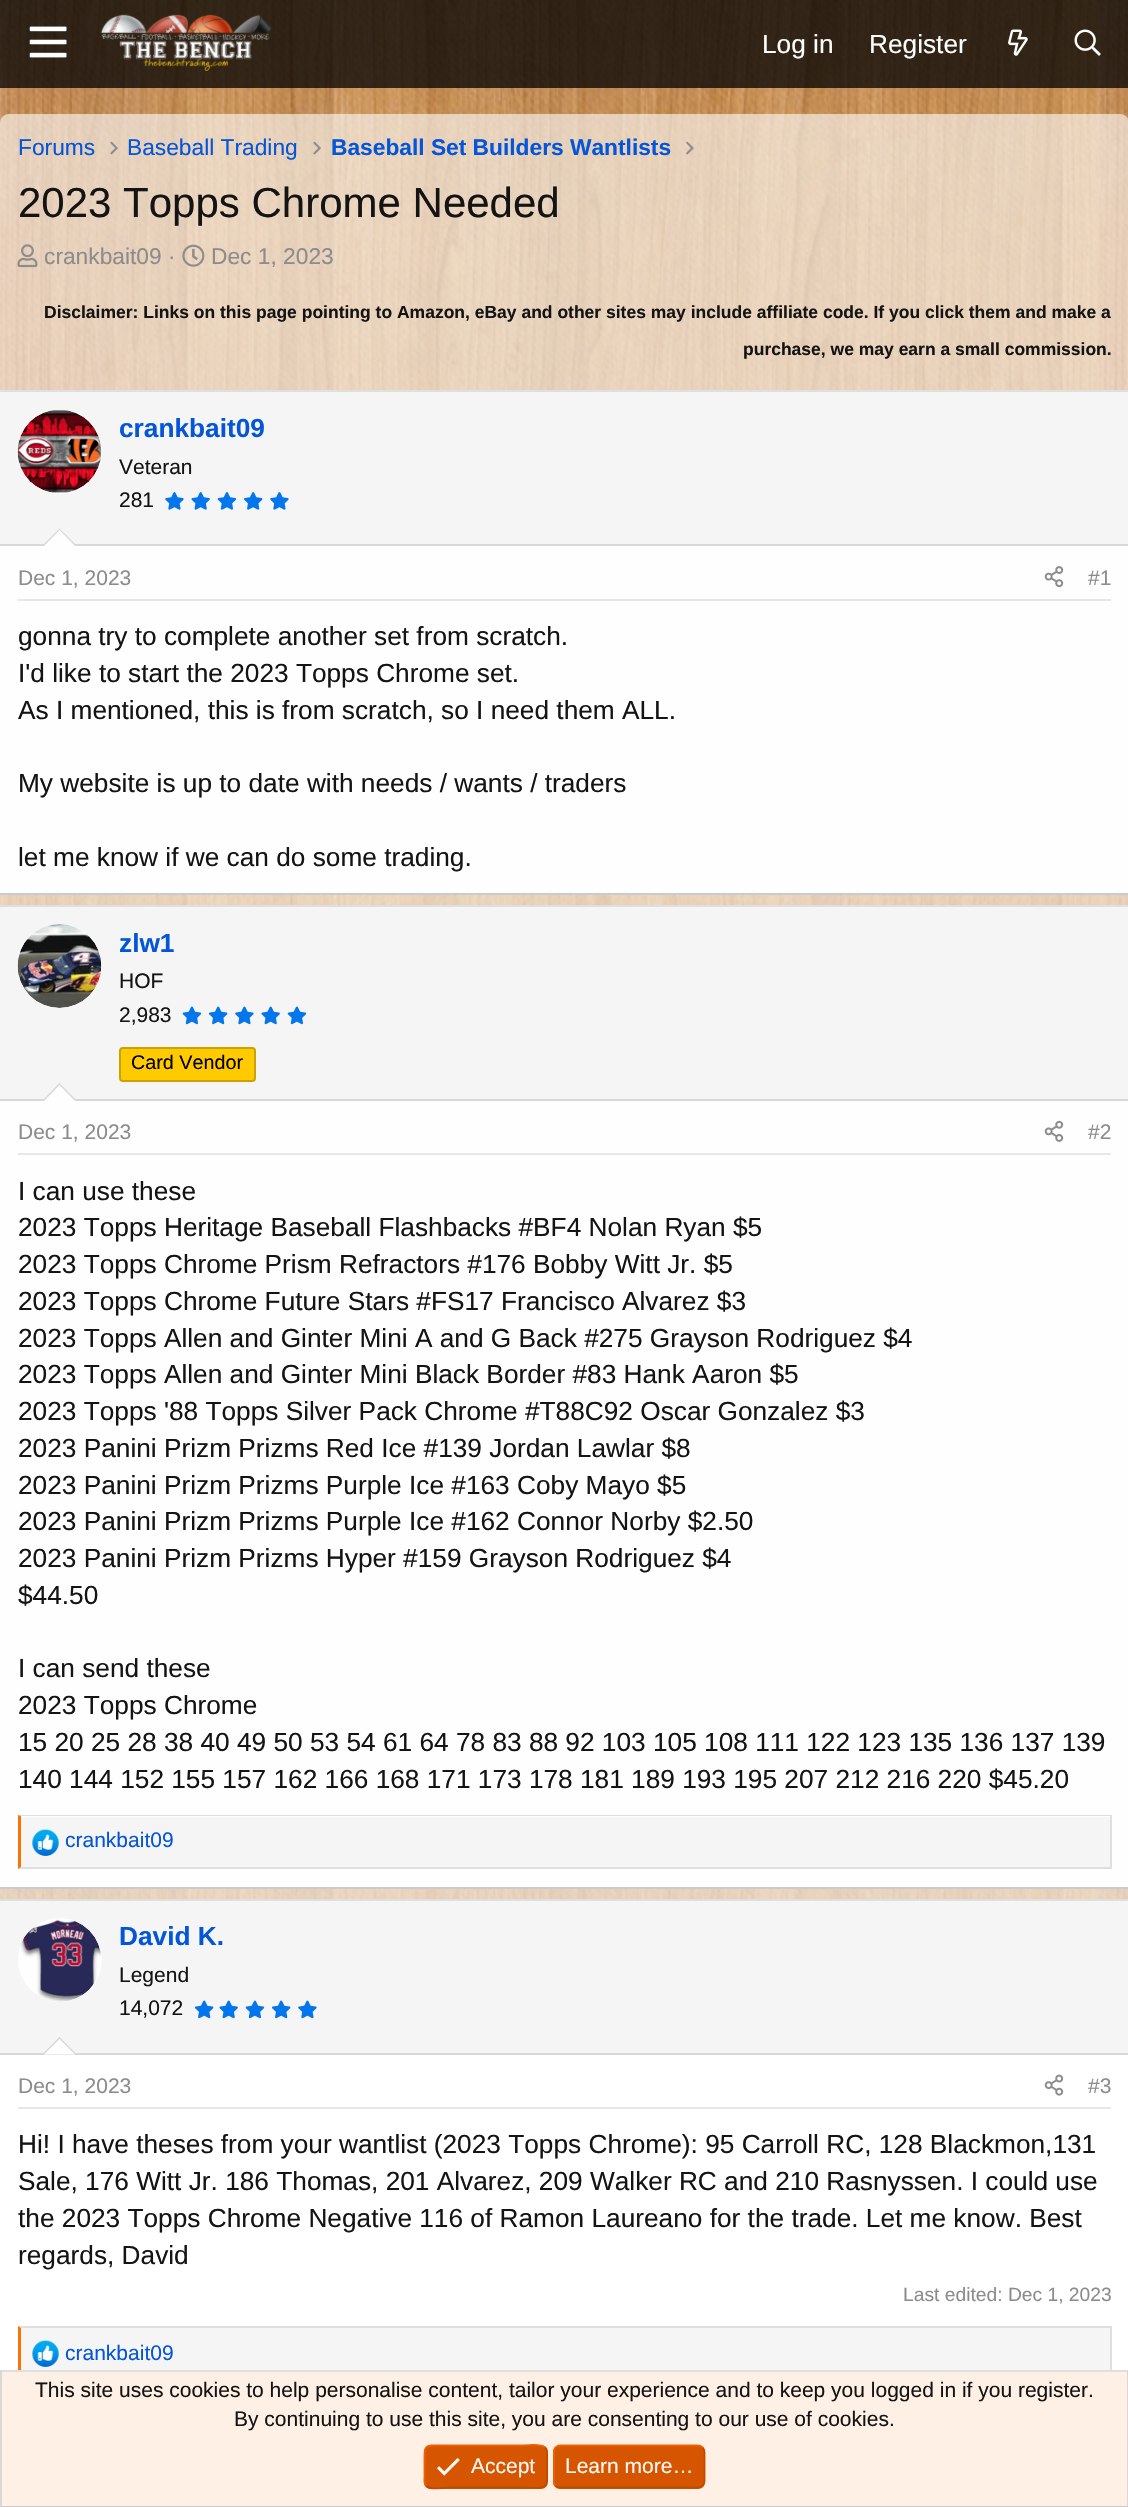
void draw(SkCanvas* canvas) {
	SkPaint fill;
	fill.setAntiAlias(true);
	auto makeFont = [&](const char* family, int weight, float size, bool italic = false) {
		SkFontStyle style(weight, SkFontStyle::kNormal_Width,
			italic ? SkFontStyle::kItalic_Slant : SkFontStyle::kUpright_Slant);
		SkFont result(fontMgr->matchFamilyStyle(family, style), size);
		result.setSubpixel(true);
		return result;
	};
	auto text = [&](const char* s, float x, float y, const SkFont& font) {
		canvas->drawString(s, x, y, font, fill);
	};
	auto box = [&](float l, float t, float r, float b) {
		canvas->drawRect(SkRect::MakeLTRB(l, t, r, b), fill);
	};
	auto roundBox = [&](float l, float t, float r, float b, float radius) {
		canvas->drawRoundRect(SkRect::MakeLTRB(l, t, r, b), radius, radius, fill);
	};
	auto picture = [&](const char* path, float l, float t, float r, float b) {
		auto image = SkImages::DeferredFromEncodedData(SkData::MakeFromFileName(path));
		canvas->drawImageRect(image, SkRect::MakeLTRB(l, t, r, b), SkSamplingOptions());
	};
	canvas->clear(0xFFFFFFFF);
	picture("image0.png", 0, 0, 1128, 1899);
	fill.setColor(0xBF000000);
	box(0, 0, 1128, 88);
	picture("image1.png", 29, 26, 67, 58);
	picture("image2.png", 100, 14, 272, 72);
	picture("image3.png", 1008, 29, 1028, 56);
	picture("image4.png", 1074, 29, 1101, 56);
	picture("image5.png", 110, 141, 118, 155);
	picture("image6.png", 313, 141, 321, 155);
	picture("image7.png", 686, 141, 694, 155);
	picture("image8.png", 17, 244, 38, 268);
	picture("image9.png", 182, 244, 205, 267);
	fill.setColor(0xFFFEFEFE);
	box(0, 546, 1128, 893);
	fill.setColor(0xFFDFDFDF);
	box(0, 390, 1128, 392);
	fill.setColor(0xFFCBCBCB);
	box(0, 893, 1128, 895);
	fill.setColor(0xFFF5F5F5);
	box(0, 392, 1128, 544);
	fill.setColor(0xFFD8D8D8);
	box(0, 544, 1128, 546);
	fill.setColor(0xFFFEFEFE);
	canvas->drawCircle(60, 452, 42, fill);
	picture("image10.png", 17, 410, 102, 493);
	picture("image11.png", 165, 492, 184, 510);
	picture("image12.png", 191, 492, 210, 510);
	picture("image13.png", 217, 492, 237, 510);
	picture("image14.png", 244, 492, 263, 510);
	picture("image11.png", 270, 492, 289, 510);
	fill.setColor(0xFFD8D8D8);
	canvas->drawPath(SkPathBuilder().moveTo(77, 546).lineTo(42, 546).lineTo(59.5f, 528.5f).close().detach(), fill);
	fill.setColor(0xFFFEFEFE);
	canvas->drawPath(SkPathBuilder().moveTo(75, 546).lineTo(44, 546).lineTo(59.5f, 530).close().detach(), fill);
	fill.setColor(0xFFE7E7E7);
	box(18, 599, 1111, 601);
	picture("image15.png", 1044, 566, 1064, 588);
	fill.setColor(0xFFFEFEFE);
	box(0, 1101, 1128, 1887);
	fill.setColor(0xFFDFDFDF);
	box(0, 905, 1128, 907);
	fill.setColor(0xFFCBCBCB);
	box(0, 1887, 1128, 1889);
	fill.setColor(0xFFF5F5F5);
	box(0, 907, 1128, 1099);
	fill.setColor(0xFFD8D8D8);
	box(0, 1099, 1128, 1101);
	fill.setColor(0xFFFEFEFE);
	canvas->drawCircle(60, 966, 42, fill);
	picture("image16.png", 17, 924, 102, 1008);
	picture("image17.png", 182, 1006, 202, 1025);
	picture("image18.png", 209, 1006, 228, 1025);
	picture("image19.png", 235, 1006, 254, 1025);
	picture("image20.png", 261, 1006, 280, 1025);
	picture("image17.png", 287, 1006, 307, 1025);
	fill.setColor(0xFFFFCB00);
	canvas->drawRoundRect(SkRect::MakeLTRB(120, 1048, 255, 1081), 3, 3, fill);
	fill.setStyle(SkPaint::kStroke_Style);
	fill.setStrokeWidth(2);
	fill.setColor(0xFFCCA200);
	canvas->drawRoundRect(SkRect::MakeLTRB(120, 1048, 255, 1081), 3, 3, fill);
	fill.setStyle(SkPaint::kFill_Style);
	fill.setColor(0xFFD8D8D8);
	canvas->drawPath(SkPathBuilder().moveTo(77, 1101).lineTo(42, 1101).lineTo(59.5f, 1083).close().detach(), fill);
	fill.setColor(0xFFFEFEFE);
	canvas->drawPath(SkPathBuilder().moveTo(75, 1101).lineTo(44, 1101).lineTo(59.5f, 1085).close().detach(), fill);
	fill.setColor(0xFFE7E7E7);
	box(18, 1153, 1111, 1155);
	picture("image21.png", 1044, 1120, 1064, 1142);
	fill.setColor(0xFFF5F5F5);
	box(21, 1817, 1110, 1867);
	fill.setColor(0xFFDFDFDF);
	canvas->drawPath(SkPathBuilder().moveTo(18, 1815).lineTo(1111, 1815).lineTo(1110, 1816).lineTo(21, 1816).close().detach(), fill);
	box(1110, 1815, 1112, 1869);
	canvas->drawPath(SkPathBuilder().moveTo(1111, 1869).lineTo(18, 1869).lineTo(21, 1867).lineTo(1110, 1867).close().detach(), fill);
	fill.setColor(0xFFFA7307);
	canvas->drawPath(SkPathBuilder().moveTo(18, 1869).lineTo(18, 1815).lineTo(21, 1816).lineTo(21, 1867).close().detach(), fill);
	picture("image22.png", 32, 1829, 59, 1856);
	fill.setColor(0xFFDFDFDF);
	box(0, 1899, 1128, 1901);
	fill.setColor(0xFFF5F5F5);
	box(0, 1901, 1128, 2053);
	fill.setColor(0xFFD8D8D8);
	box(0, 2053, 1128, 2055);
	fill.setColor(0xFFFEFEFE);
	canvas->drawCircle(60, 1960, 42, fill);
	picture("image23.png", 21, 1919, 101, 2002);
	picture("image18.png", 195, 2000, 214, 2019);
	picture("image20.png", 219, 2000, 238, 2019);
	picture("image17.png", 245, 2000, 265, 2019);
	picture("image18.png", 272, 2000, 291, 2019);
	picture("image19.png", 298, 2000, 317, 2019);
	fill.setColor(0xFFD8D8D8);
	canvas->drawPath(SkPathBuilder().moveTo(77, 2054.5f).lineTo(42, 2054.5f).lineTo(59.5f, 2037).close().detach(), fill);
	fill.setColor(0xFFFEFEFE);
	canvas->drawPath(SkPathBuilder().moveTo(75, 2054.5f).lineTo(44, 2054.5f).lineTo(59.5f, 2039).close().detach(), fill);
	fill.setColor(0xFFE7E7E7);
	box(18, 2107, 1111, 2109);
	picture("image24.png", 1044, 2074, 1064, 2096);
	fill.setColor(0xFFF5F5F5);
	box(21, 2328, 1110, 2370);
	fill.setColor(0xFFDFDFDF);
	canvas->drawPath(SkPathBuilder().moveTo(18, 2326).lineTo(1111, 2326).lineTo(1110, 2328).lineTo(21, 2328).close().detach(), fill);
	box(1110, 2326, 1112, 2370);
	fill.setColor(0xFFFA7307);
	canvas->drawPath(SkPathBuilder().moveTo(18, 2380).lineTo(18, 2326).lineTo(21, 2328).lineTo(21, 2378).close().detach(), fill);
	picture("image25.png", 32, 2340, 59, 2367);
	fill.setColor(0xFFFEF0E5);
	box(2, 2372, 1127, 2506);
	fill.setColor(0xFFDFDFDF);
	box(0, 2370, 1128, 2372);
	fill.setColor(0xFFD8D8D8);
	box(1127, 2370, 1128, 2507);
	fill.setColor(0xFFCBCBCB);
	box(0, 2506, 1128, 2507);
	fill.setColor(0xFFD8D8D8);
	box(0, 2370, 2, 2507);
	fill.setColor(0xFFD65500);
	roundBox(424, 2445, 548, 2489, 7);
	fill.setStyle(SkPaint::kStroke_Style);
	fill.setStrokeWidth(1.8f);
	fill.setColor(0xFFBD4B00);
	canvas->drawPath(SkPathBuilder().moveTo(545, 2447.5f).cubicTo(547.5f, 2450, 547, 2453.5f, 547, 2456.5f).lineTo(547, 2466.5f).cubicTo(547, 2491.5f, 549, 2487.5f, 522.5f, 2487.5f).lineTo(449, 2487.5f).cubicTo(447, 2487.5f, 430.5f, 2490.5f, 426, 2486).detach(), fill);
	fill.setColor(0xFFF05F00);
	canvas->drawPath(SkPathBuilder().moveTo(426, 2486).cubicTo(423.5f, 2483.5f, 424.5f, 2479.5f, 424.5f, 2476.5f).lineTo(424.5f, 2466.5f).cubicTo(424.5f, 2442, 422.5f, 2445.5f, 449, 2445.5f).lineTo(522.5f, 2445.5f).cubicTo(524, 2445.5f, 540.5f, 2443, 545, 2447.5f).detach(), fill);
	picture("image26.png", 437, 2458, 460, 2476);
	fill.setStyle(SkPaint::kFill_Style);
	fill.setColor(0xFFD65500);
	roundBox(553, 2445, 705, 2489, 7);
	fill.setStyle(SkPaint::kStroke_Style);
	fill.setColor(0xFFBD4B00);
	canvas->drawPath(SkPathBuilder().moveTo(702.5f, 2447.5f).cubicTo(703.5f, 2448.5f, 704.5f, 2450, 704.5f, 2452).lineTo(704.5f, 2481.5f).cubicTo(704.5f, 2483, 703.5f, 2484.5f, 702.5f, 2486).cubicTo(701.5f, 2487, 700, 2487.5f, 698, 2487.5f).lineTo(560, 2487.5f).cubicTo(558.5f, 2487.5f, 557, 2487, 555.5f, 2486).detach(), fill);
	fill.setColor(0xFFF05F00);
	canvas->drawPath(SkPathBuilder().moveTo(555.5f, 2486).cubicTo(554.5f, 2484.5f, 554, 2483, 554, 2481.5f).lineTo(554, 2452).cubicTo(554, 2450, 554.5f, 2448.5f, 555.5f, 2447.5f).cubicTo(557, 2446.5f, 558.5f, 2445.5f, 560, 2445.5f).lineTo(698, 2445.5f).cubicTo(700, 2445.5f, 701.5f, 2446.5f, 702.5f, 2447.5f).detach(), fill);
	auto font1 = makeFont("Liberation Sans", 400, 26.25f);
	fill.setStyle(SkPaint::kFill_Style);
	fill.setColor(0xFFFEFEFE);
	text("Log in", 762, 53, font1);
	text("Register", 869, 53, font1);
	auto font2 = makeFont("Liberation Sans", 400, 22.75f);
	fill.setColor(0xFF0355DA);
	text("Forums", 18, 155, font2);
	text("Baseball Trading", 127, 155, font2);
	auto font3 = makeFont("Liberation Sans", 700, 22.75f);
	text("Baseball Set Builders Wantlists", 331, 155, font3);
	auto font4 = makeFont("Liberation Sans", 400, 42);
	fill.setColor(0xFF141414);
	text("2023 Topps Chrome Needed", 18, 217, font4);
	fill.setColor(0xFF8C8C8C);
	text("crankbait09 ·", 44, 264, font2);
	text("Dec 1, 2023", 211, 264, font2);
	auto font5 = makeFont("Liberation Sans", 700, 17.5f);
	fill.setColor(0xFF141414);
	text("Disclaimer: Links on this page pointing to Amazon, eBay and other sites may include affiliate code. If you click them and make a", 44, 318, font5);
	text("purchase, we may earn a small commission.", 743, 355, font5);
	auto font6 = makeFont("Liberation Sans", 700, 26.25f);
	fill.setColor(0xFF0355DA);
	text("crankbait09", 119, 437, font6);
	auto font7 = makeFont("Liberation Sans", 400, 21);
	fill.setColor(0xFF141414);
	text("Veteran", 119, 474, font7);
	text("281", 119, 507, font7);
	fill.setColor(0xFF8C8C8C);
	text("Dec 1, 2023", 18, 585, font7);
	text("#1", 1088, 585, font7);
	fill.setColor(0xFF141414);
	text("gonna try to complete another set from scratch.", 18, 645, font1);
	text("I'd like to start the 2023 Topps Chrome set.", 18, 682, font1);
	text("As I mentioned, this is from scratch, so I need them ALL.", 18, 719, font1);
	text("My website is up to date with needs / wants / traders", 18, 792, font1);
	text("let me know if we can do some trading.", 18, 866, font1);
	fill.setColor(0xFF0355DA);
	text("zlw1", 119, 952, font6);
	fill.setColor(0xFF141414);
	text("HOF", 119, 988, font7);
	text("2,983", 119, 1022, font7);
	auto font8 = makeFont("Liberation Sans", 400, 19.75f);
	fill.setColor(0xFF000000);
	text("Card Vendor", 131, 1069, font8);
	fill.setColor(0xFF8C8C8C);
	text("Dec 1, 2023", 18, 1139, font7);
	text("#2", 1088, 1139, font7);
	fill.setColor(0xFF141414);
	text("I can use these", 18, 1200, font1);
	text("2023 Topps Heritage Baseball Flashbacks #BF4 Nolan Ryan $5", 18, 1236, font1);
	text("2023 Topps Chrome Prism Refractors #176 Bobby Witt Jr. $5", 18, 1273, font1);
	text("2023 Topps Chrome Future Stars #FS17 Francisco Alvarez $3", 18, 1310, font1);
	text("2023 Topps Allen and Ginter Mini A and G Back #275 Grayson Rodriguez $4", 18, 1347, font1);
	text("2023 Topps Allen and Ginter Mini Black Border #83 Hank Aaron $5", 18, 1383, font1);
	text("2023 Topps '88 Topps Silver Pack Chrome #T88C92 Oscar Gonzalez $3", 18, 1420, font1);
	text("2023 Panini Prizm Prizms Red Ice #139 Jordan Lawlar $8", 18, 1457, font1);
	text("2023 Panini Prizm Prizms Purple Ice #163 Coby Mayo $5", 18, 1494, font1);
	text("2023 Panini Prizm Prizms Purple Ice #162 Connor Norby $2.50", 18, 1530, font1);
	text("2023 Panini Prizm Prizms Hyper #159 Grayson Rodriguez $4", 18, 1567, font1);
	text("$44.50", 18, 1604, font1);
	text("I can send these", 18, 1677, font1);
	text("2023 Topps Chrome", 18, 1714, font1);
	text("15 20 25 28 38 40 49 50 53 54 61 64 78 83 88 92 103 105 108 111 122 123 135 136 137 139", 18, 1751, font1);
	text("140 144 152 155 157 162 166 168 171 173 178 181 189 193 195 207 212 216 220 $45.20", 18, 1788, font1);
	fill.setColor(0xFF0355DA);
	text("crankbait09", 65, 1847, font7);
	text("David K.", 119, 1945, font6);
	fill.setColor(0xFF141414);
	text("Legend", 119, 1982, font7);
	text("14,072", 119, 2015, font7);
	fill.setColor(0xFF8C8C8C);
	text("Dec 1, 2023", 18, 2093, font7);
	text("#3", 1088, 2093, font7);
	fill.setColor(0xFF141414);
	text("Hi! I have theses from your wantlist (2023 Topps Chrome): 95 Carroll RC, 128 Blackmon,131", 18, 2153, font1);
	text("Sale, 176 Witt Jr. 186 Thomas, 201 Alvarez, 209 Walker RC and 210 Rasnyssen. I could use", 18, 2190, font1);
	text("the 2023 Topps Chrome Negative 116 of Ramon Laureano for the trade. Let me know. Best", 18, 2227, font1);
	text("regards, David", 18, 2264, font1);
	auto font9 = makeFont("Liberation Sans", 400, 19.25f);
	fill.setColor(0xFF8C8C8C);
	text("Last edited: Dec 1, 2023", 903, 2301, font9);
	fill.setColor(0xFF0355DA);
	text("crankbait09", 65, 2360, font7);
	fill.setColor(0xFF141414);
	text("This site uses cookies to help personalise content, tailor your experience and to keep you logged in if you register.", 35, 2397, font7);
	text("By continuing to use this site, you are consenting to our use of cookies.", 234, 2426, font7);
	fill.setColor(0xFFFFF8F2);
	text("Accept", 471, 2473, font7);
	text("Learn more…", 565, 2473, font7);
}
